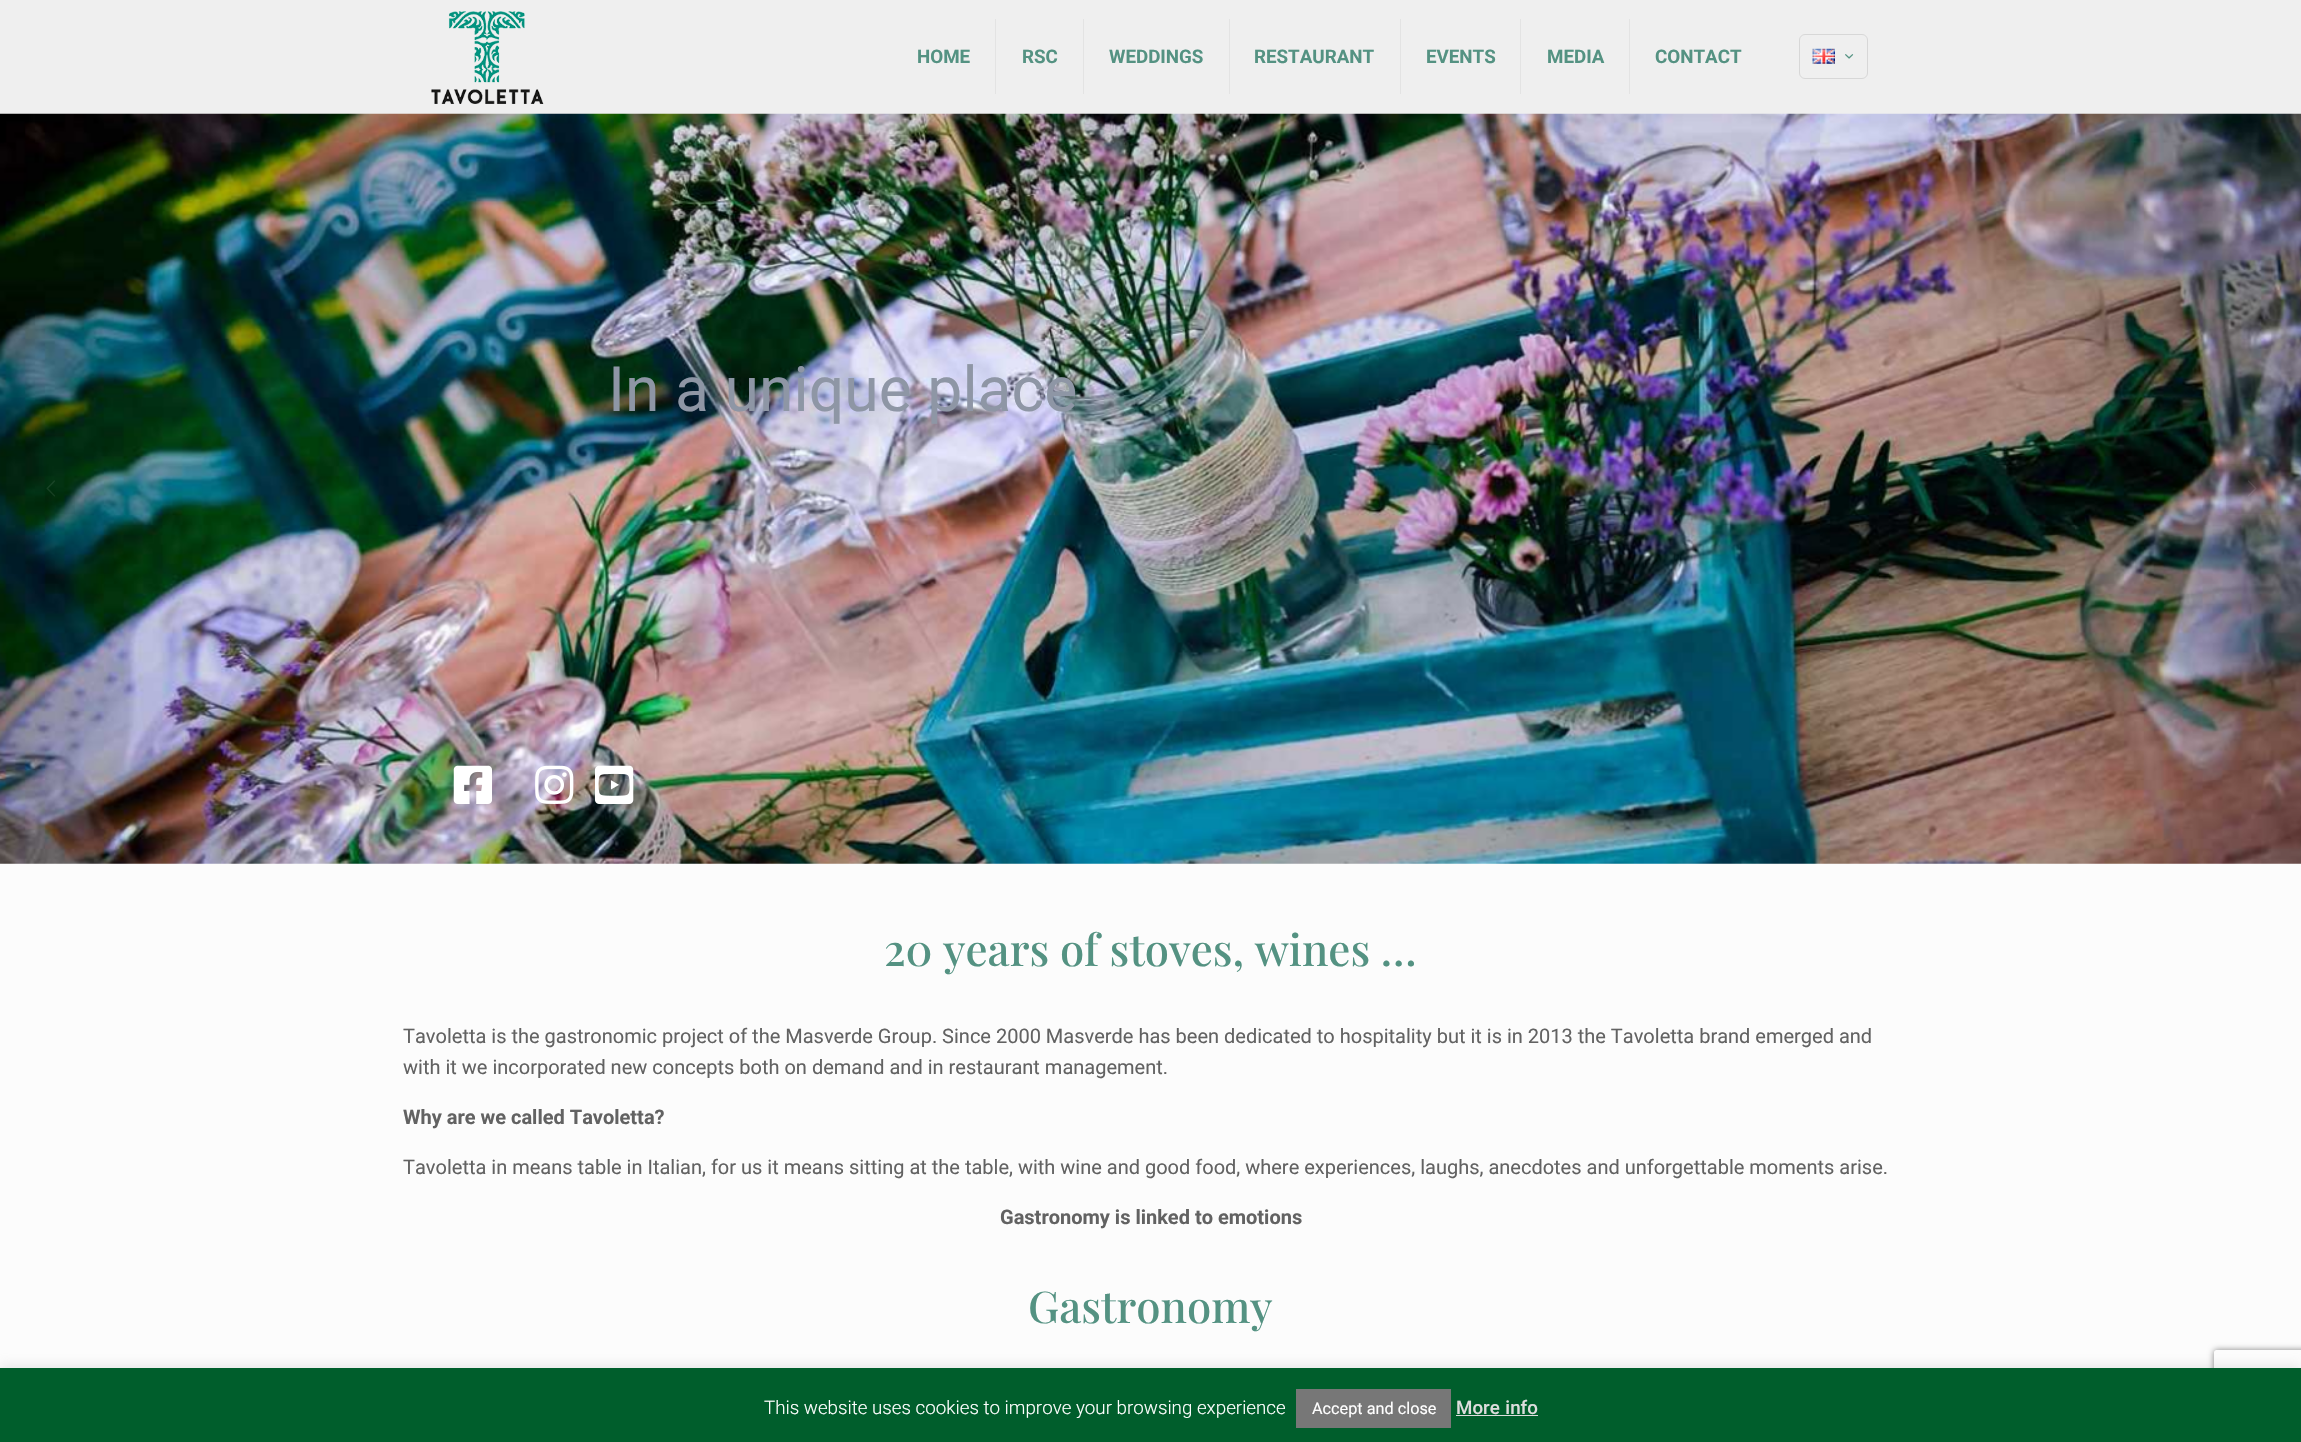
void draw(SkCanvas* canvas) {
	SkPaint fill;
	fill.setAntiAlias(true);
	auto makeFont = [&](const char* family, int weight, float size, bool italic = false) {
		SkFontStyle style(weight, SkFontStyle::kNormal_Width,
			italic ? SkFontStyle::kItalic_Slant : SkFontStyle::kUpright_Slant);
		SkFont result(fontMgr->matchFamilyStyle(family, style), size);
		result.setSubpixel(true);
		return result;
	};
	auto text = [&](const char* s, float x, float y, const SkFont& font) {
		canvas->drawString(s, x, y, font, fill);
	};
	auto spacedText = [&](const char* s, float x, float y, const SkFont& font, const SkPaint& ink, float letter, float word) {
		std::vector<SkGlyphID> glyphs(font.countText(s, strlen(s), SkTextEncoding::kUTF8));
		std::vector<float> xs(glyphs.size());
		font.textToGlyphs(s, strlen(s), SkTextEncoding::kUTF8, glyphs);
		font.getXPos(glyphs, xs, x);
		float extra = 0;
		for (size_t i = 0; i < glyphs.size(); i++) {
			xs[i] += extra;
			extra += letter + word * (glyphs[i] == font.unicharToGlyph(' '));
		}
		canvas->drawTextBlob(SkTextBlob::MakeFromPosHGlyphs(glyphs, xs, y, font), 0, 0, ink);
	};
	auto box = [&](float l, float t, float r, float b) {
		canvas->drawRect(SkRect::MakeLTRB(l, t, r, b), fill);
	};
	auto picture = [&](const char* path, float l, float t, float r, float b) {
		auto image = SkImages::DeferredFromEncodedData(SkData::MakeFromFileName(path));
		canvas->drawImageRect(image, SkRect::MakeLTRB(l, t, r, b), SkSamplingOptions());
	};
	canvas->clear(0xFFFCFCFC);
	fill.setColor(0xFFEFEFEF);
	box(0, 0, 2301, 114);
	picture("image0.png", 431, 11, 544, 104);
	fill.setColor(0xFFE3E3E3);
	box(995, 19, 996, 94);
	box(1083, 19, 1084, 94);
	box(1229, 19, 1230, 94);
	box(1400, 19, 1401, 94);
	box(1520, 19, 1521, 94);
	box(1629, 19, 1630, 94);
	fill.setStyle(SkPaint::kStroke_Style);
	fill.setStrokeWidth(1);
	fill.setColor(0xFFD7D7D7);
	canvas->drawRoundRect(SkRect::MakeLTRB(1799.5f, 34.5f, 1867.5f, 78.5f), 5.5f, 5.5f, fill);
	picture("image1.png", 1812, 48, 1835, 64);
	picture("image2.png", 1845, 54, 1854, 59);
	picture("image3.png", 0, 113, 2301, 864);
	fill.setStyle(SkPaint::kFill_Style);
	fill.setColor(0x0A000000);
	box(56, 492, 75, 514);
	picture("image4.png", 46, 480, 55, 497);
	box(2226, 464, 2276, 514);
	picture("image5.png", 2248, 480, 2257, 497);
	picture("image6.png", 453, 765, 492, 804);
	picture("image7.png", 535, 765, 574, 804);
	picture("image8.png", 595, 765, 634, 804);
	fill.setColor(0x4DACABAB);
	fill.setMaskFilter(SkMaskFilter::MakeBlur(kNormal_SkBlurStyle, 6));
	canvas->drawRect(SkRect::MakeLTRB(0, 1366, 2301, 1441), fill);
	fill.setMaskFilter(nullptr);
	canvas->save();
	canvas->clipPath(SkPathBuilder(SkPathFillType::kEvenOdd).moveTo(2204, 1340).lineTo(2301, 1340).lineTo(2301, 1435).lineTo(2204, 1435).close().moveTo(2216.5f, 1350).lineTo(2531.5f, 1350).cubicTo(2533, 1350, 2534, 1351, 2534, 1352.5f).lineTo(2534, 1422.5f).cubicTo(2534, 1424, 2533, 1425, 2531.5f, 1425).lineTo(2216.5f, 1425).cubicTo(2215, 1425, 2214, 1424, 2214, 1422.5f).lineTo(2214, 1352.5f).cubicTo(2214, 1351, 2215, 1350, 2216.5f, 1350).close().detach(), true);
	fill.setColor(0xFF808080);
	fill.setMaskFilter(SkMaskFilter::MakeBlur(kNormal_SkBlurStyle, 3));
	canvas->drawRoundRect(SkRect::MakeLTRB(2214, 1350, 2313, 1425), 2.5f, 2.5f, fill);
	fill.setMaskFilter(nullptr);
	canvas->restore();
	fill.setColor(0xFF005E2C);
	box(0, 1368, 2301, 1442);
	fill.setColor(0xFF777777);
	box(1296, 1389, 1451, 1428);
	fill.setColor(0xFFDDDDDD);
	box(1456, 1415, 1538, 1416);
	auto font1 = makeFont("Roboto", 700, 18.75f);
	fill.setColor(0xFF549282);
	text("HOME", 917, 63, font1);
	text("RSC", 1022, 63, font1);
	text("WEDDINGS", 1109, 63, font1);
	text("RESTAURANT", 1254, 63, font1);
	text("EVENTS", 1426, 63, font1);
	text("MEDIA", 1547, 63, font1);
	text("CONTACT", 1655, 63, font1);
	auto font2 = makeFont("Roboto", 400, 62.5f);
	fill.setColor(0xFF8E96A5);
	text("In a unique place", 608, 411, font2);
	auto font3 = makeFont("Playfair Display", 500, 43.75f);
	fill.setColor(0xFF549282);
	text("20 years of stoves, wines …", 884, 966, font3);
	auto font4 = makeFont("Roboto", 400, 20);
	fill.setColor(0xFF626262);
	text("Tavoletta is the gastronomic project of the Masverde Group. Since 2000 Masverde has been dedicated to hospitality but it is in 2013 the Tavoletta brand emerged and", 403, 1043, font4);
	text("with it we incorporated new concepts both on demand and in restaurant management.", 403, 1074, font4);
	auto font5 = makeFont("Roboto", 700, 20);
	text("Why are we called Tavoletta?", 403, 1124, font5);
	text("Tavoletta in means table in Italian, for us it means sitting at the table, with wine and good food, where experiences, laughs, anecdotes and unforgettable moments arise.", 403, 1174, font4);
	text("Gastronomy is linked to emotions", 1000, 1224, font5);
	fill.setColor(0xFF549282);
	text("Gastronomy", 1028, 1323, font3);
	auto font6 = makeFont("Roboto", 300, 18.75f);
	fill.setColor(0xFFFFFFFF);
	text("This website uses cookies to improve your browsing experience", 764, 1414, font6);
	auto font7 = makeFont("Roboto", 400, 16.25f);
	text("Accept and close", 1312, 1414, font7);
	auto font8 = makeFont("Roboto", 500, 18.75f);
	fill.setColor(0xFFDDDDDD);
	spacedText("More info", 1456, 1414, font8, fill, 0, 1);
}
